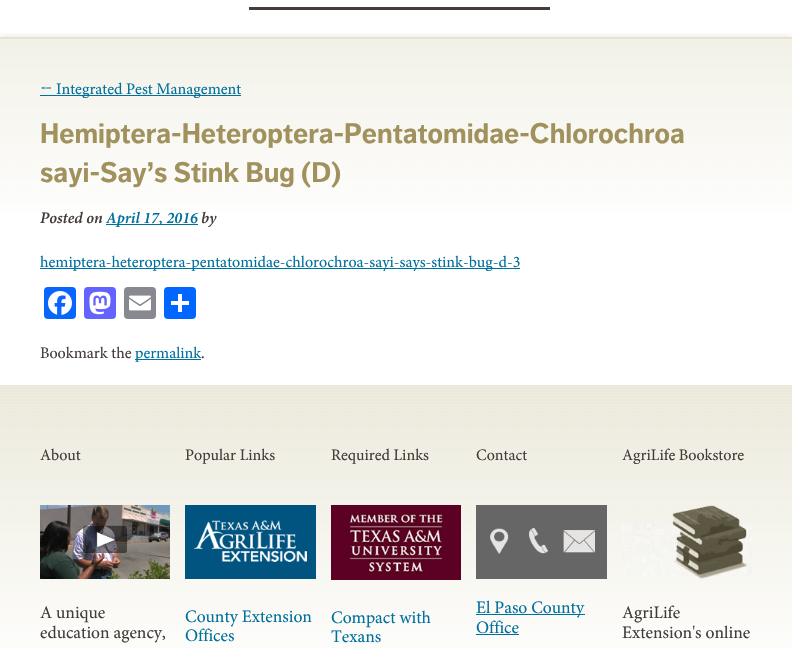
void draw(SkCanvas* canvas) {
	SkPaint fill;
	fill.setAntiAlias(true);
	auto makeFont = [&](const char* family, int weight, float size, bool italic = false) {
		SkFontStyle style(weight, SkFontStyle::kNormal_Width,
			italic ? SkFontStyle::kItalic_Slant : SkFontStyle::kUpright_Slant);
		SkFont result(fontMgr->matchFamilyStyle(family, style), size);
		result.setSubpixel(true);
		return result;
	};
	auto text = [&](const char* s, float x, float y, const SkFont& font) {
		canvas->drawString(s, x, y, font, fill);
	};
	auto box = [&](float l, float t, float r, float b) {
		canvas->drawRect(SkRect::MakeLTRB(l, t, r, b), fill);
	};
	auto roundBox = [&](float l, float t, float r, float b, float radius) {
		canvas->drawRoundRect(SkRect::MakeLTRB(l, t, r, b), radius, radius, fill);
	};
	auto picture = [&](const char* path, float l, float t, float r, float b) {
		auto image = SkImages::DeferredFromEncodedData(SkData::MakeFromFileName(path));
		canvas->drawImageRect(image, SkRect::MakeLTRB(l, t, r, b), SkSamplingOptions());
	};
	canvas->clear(0xFFFFFFFF);
	fill.setColor(0xFF443D3A);
	box(249, 7, 550, 10);
	canvas->save();
	canvas->clipRect(SkRect::MakeLTRB(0, 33, 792, 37));
	fill.setColor(0x12101010);
	fill.setMaskFilter(SkMaskFilter::MakeBlur(kNormal_SkBlurStyle, 3));
	canvas->drawRect(SkRect::MakeLTRB(0, 35, 792, 363), fill);
	fill.setMaskFilter(nullptr);
	canvas->restore();
	picture("image0.png", 0, 39, 792, 211);
	fill.setColor(0xFFE7E2CB);
	box(0, 37, 792, 39);
	fill.setColor(0xFF00709E);
	box(40, 95, 241, 96);
	box(106, 224, 198, 225);
	box(40, 268, 520, 269);
	fill.setColor(0xFF0866FF);
	roundBox(44, 287, 76, 319, 4);
	picture("image1.png", 48, 291, 72, 315);
	fill.setColor(0xFF6364FF);
	roundBox(84, 287, 116, 319, 4);
	picture("image2.png", 89, 291, 111, 315);
	fill.setColor(0xFF888990);
	roundBox(124, 287, 156, 319, 4);
	picture("image3.png", 129, 295, 151, 311);
	fill.setColor(0xFF0166FF);
	roundBox(164, 287, 196, 319, 4);
	fill.setColor(0xFFFFFFFF);
	box(178, 294, 182, 312);
	box(171, 301, 189, 305);
	fill.setColor(0xFF00709E);
	box(135, 359, 201, 360);
	picture("image4.png", 0, 385, 792, 648);
	picture("image5.png", 40, 505, 170, 579);
	picture("image6.png", 185, 505, 316, 579);
	picture("image7.png", 331, 505, 461, 580);
	picture("image8.png", 476, 505, 607, 579);
	box(476, 614, 585, 615);
	box(476, 634, 519, 635);
	picture("image9.png", 622, 505, 752, 579);
	auto font1 = makeFont("Caladea", 400, 16);
	text("←", 40, 94, font1);
	auto font2 = makeFont("Minion", 400, 16);
	text("Integrated Pest Management", 56, 94, font2);
	auto font3 = makeFont("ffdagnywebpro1", 700, 28);
	fill.setColor(0xFFA0915D);
	text("Hemiptera-Heteroptera-Pentatomidae-Chlorochroa", 40, 143, font3);
	text("sayi-Say’s Stink Bug (D)", 40, 182, font3);
	auto font4 = makeFont("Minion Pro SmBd", 600, 16, true);
	fill.setColor(0xFF433C3A);
	text("Posted on", 40, 223, font4);
	fill.setColor(0xFF00709E);
	text("April 17, 2016", 106, 223, font4);
	fill.setColor(0xFF433C3A);
	text("by", 201, 223, font4);
	fill.setColor(0xFF00709E);
	text("hemiptera-heteroptera-pentatomidae-chlorochroa-sayi-says-stink-bug-d-3", 40, 267, font2);
	fill.setColor(0xFF433C3A);
	text("Bookmark the", 40, 358, font2);
	fill.setColor(0xFF00709E);
	text("permalink", 135, 358, font2);
	fill.setColor(0xFF433C3A);
	text(".", 201, 358, font2);
	text("About", 40, 460, font2);
	auto font5 = makeFont("Minion", 400, 17.5f);
	text("A unique", 40, 618, font5);
	text("education agency,", 40, 638, font5);
	text("Popular Links", 185, 460, font2);
	fill.setColor(0xFF00709E);
	text("County Extension", 185, 622, font5);
	text("Offices", 185, 641, font5);
	fill.setColor(0xFF433C3A);
	text("Required Links", 331, 460, font2);
	fill.setColor(0xFF00709E);
	text("Compact with", 331, 623, font5);
	text("Texans", 331, 642, font5);
	fill.setColor(0xFF433C3A);
	text("Contact", 476, 460, font2);
	fill.setColor(0xFF00709E);
	text("El Paso County", 476, 613, font5);
	text("Office", 476, 633, font5);
	fill.setColor(0xFF433C3A);
	text("AgriLife Bookstore", 622, 460, font2);
	text("AgriLife", 622, 618, font5);
	text("Extension's online", 622, 638, font5);
}
